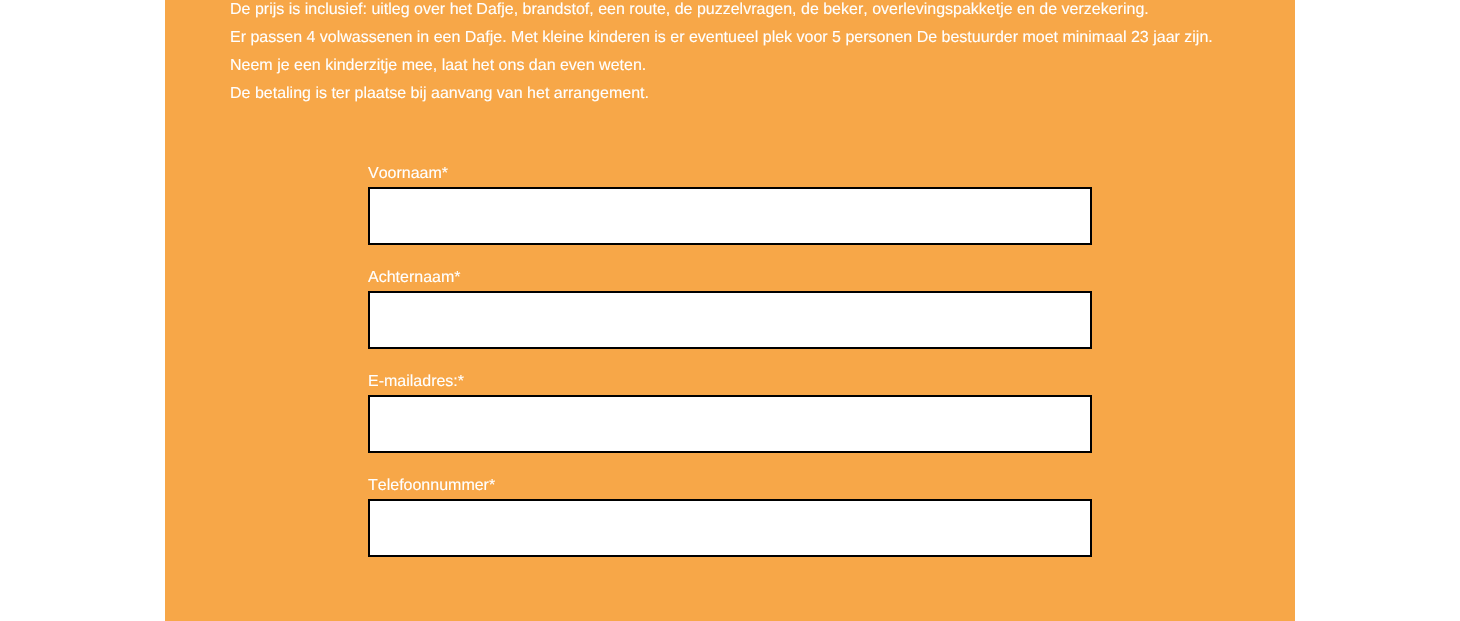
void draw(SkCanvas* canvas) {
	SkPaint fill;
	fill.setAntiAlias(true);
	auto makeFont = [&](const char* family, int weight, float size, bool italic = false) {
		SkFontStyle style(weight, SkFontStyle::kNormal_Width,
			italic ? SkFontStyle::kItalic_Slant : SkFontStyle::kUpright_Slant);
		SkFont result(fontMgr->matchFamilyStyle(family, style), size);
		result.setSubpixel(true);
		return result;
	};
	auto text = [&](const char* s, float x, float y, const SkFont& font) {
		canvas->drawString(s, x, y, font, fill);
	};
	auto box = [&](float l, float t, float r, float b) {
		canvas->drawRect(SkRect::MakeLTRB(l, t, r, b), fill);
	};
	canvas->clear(0xFFFFFFFF);
	fill.setColor(0xFFF7A748);
	box(165, 0, 1295, 621);
	fill.setColor(0xFFFFFFFF);
	canvas->drawRect(SkRect::MakeLTRB(369, 188, 1091, 244), fill);
	fill.setStyle(SkPaint::kStroke_Style);
	fill.setStrokeWidth(2);
	fill.setColor(0xFF000000);
	canvas->drawRect(SkRect::MakeLTRB(369, 188, 1091, 244), fill);
	fill.setStyle(SkPaint::kFill_Style);
	fill.setColor(0xFFFFFFFF);
	canvas->drawRect(SkRect::MakeLTRB(369, 292, 1091, 348), fill);
	fill.setStyle(SkPaint::kStroke_Style);
	fill.setColor(0xFF000000);
	canvas->drawRect(SkRect::MakeLTRB(369, 292, 1091, 348), fill);
	fill.setStyle(SkPaint::kFill_Style);
	fill.setColor(0xFFFFFFFF);
	canvas->drawRect(SkRect::MakeLTRB(369, 396, 1091, 452), fill);
	fill.setStyle(SkPaint::kStroke_Style);
	fill.setColor(0xFF000000);
	canvas->drawRect(SkRect::MakeLTRB(369, 396, 1091, 452), fill);
	fill.setStyle(SkPaint::kFill_Style);
	fill.setColor(0xFFFFFFFF);
	canvas->drawRect(SkRect::MakeLTRB(369, 500, 1091, 556), fill);
	fill.setStyle(SkPaint::kStroke_Style);
	fill.setColor(0xFF000000);
	canvas->drawRect(SkRect::MakeLTRB(369, 500, 1091, 556), fill);
	auto font1 = makeFont("Liberation Sans", 400, 16);
	fill.setStyle(SkPaint::kFill_Style);
	fill.setColor(0xFFFFFFFF);
	text("De prijs is inclusief: uitleg over het Dafje, brandstof, een route, de puzzelvragen, de beker, overlevingspakketje en de verzekering.", 230, 14, font1);
	text("Er passen 4 volwassenen in een Dafje. Met kleine kinderen is er eventueel plek voor 5 personen De bestuurder moet minimaal 23 jaar zijn.", 230, 42, font1);
	text("Neem je een kinderzitje mee, laat het ons dan even weten.", 230, 70, font1);
	text("De betaling is ter plaatse bij aanvang van het arrangement.", 230, 98, font1);
	text("Voornaam*", 368, 178, font1);
	text("Achternaam*", 368, 282, font1);
	text("E-mailadres:*", 368, 386, font1);
	text("Telefoonnummer*", 368, 490, font1);
}
